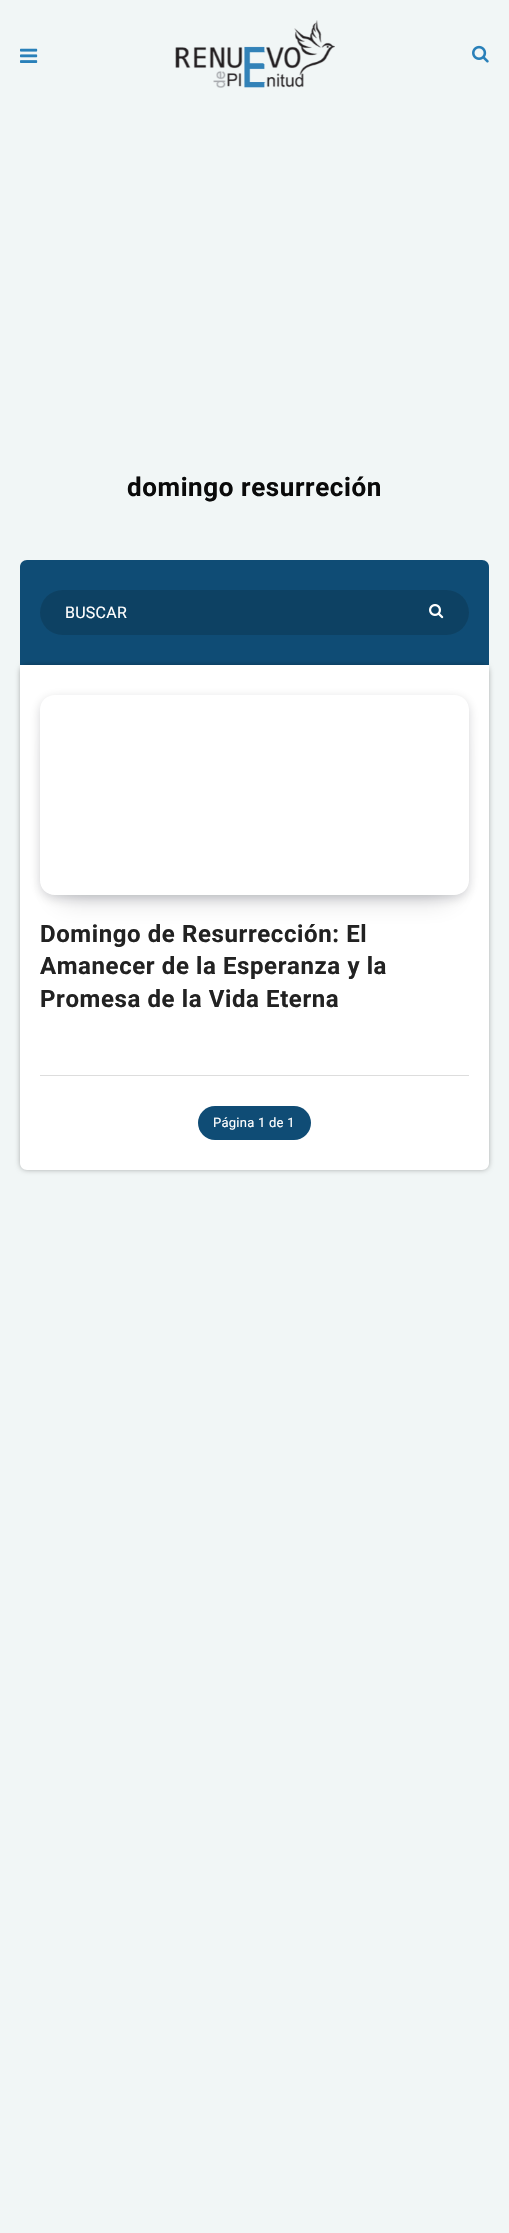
void draw(SkCanvas* canvas) {
	SkPaint fill;
	fill.setAntiAlias(true);
	auto makeFont = [&](const char* family, int weight, float size, bool italic = false) {
		SkFontStyle style(weight, SkFontStyle::kNormal_Width,
			italic ? SkFontStyle::kItalic_Slant : SkFontStyle::kUpright_Slant);
		SkFont result(fontMgr->matchFamilyStyle(family, style), size);
		result.setSubpixel(true);
		return result;
	};
	auto spacedText = [&](const char* s, float x, float y, const SkFont& font, const SkPaint& ink, float letter, float word) {
		std::vector<SkGlyphID> glyphs(font.countText(s, strlen(s), SkTextEncoding::kUTF8));
		std::vector<float> xs(glyphs.size());
		font.textToGlyphs(s, strlen(s), SkTextEncoding::kUTF8, glyphs);
		font.getXPos(glyphs, xs, x);
		float extra = 0;
		for (size_t i = 0; i < glyphs.size(); i++) {
			xs[i] += extra;
			extra += letter + word * (glyphs[i] == font.unicharToGlyph(' '));
		}
		canvas->drawTextBlob(SkTextBlob::MakeFromPosHGlyphs(glyphs, xs, y, font), 0, 0, ink);
	};
	auto box = [&](float l, float t, float r, float b) {
		canvas->drawRect(SkRect::MakeLTRB(l, t, r, b), fill);
	};
	auto roundBox = [&](float l, float t, float r, float b, float radius) {
		canvas->drawRoundRect(SkRect::MakeLTRB(l, t, r, b), radius, radius, fill);
	};
	auto picture = [&](const char* path, float l, float t, float r, float b) {
		auto image = SkImages::DeferredFromEncodedData(SkData::MakeFromFileName(path));
		canvas->drawImageRect(image, SkRect::MakeLTRB(l, t, r, b), SkSamplingOptions());
	};
	canvas->clear(0xFFF1F6F6);
	picture("image0.png", 20, 48, 38, 63);
	picture("image1.png", 175, 20, 335, 88);
	picture("image2.png", 472, 45, 489, 63);
	fill.setColor(0xFF0F4C75);
	canvas->drawPath(SkPathBuilder().moveTo(27, 560).lineTo(482, 560).cubicTo(486, 560, 489, 563, 489, 567).lineTo(489, 665).lineTo(20, 665).lineTo(20, 567).cubicTo(20, 563, 23, 560, 27, 560).close().detach(), fill);
	fill.setColor(0xFF0D4163);
	roundBox(40, 590, 469, 635, 22.5f);
	picture("image3.png", 429, 604, 444, 619);
	fill.setColor(0x4D000000);
	fill.setMaskFilter(SkMaskFilter::MakeBlur(kNormal_SkBlurStyle, 2.5f));
	canvas->drawRoundRect(SkRect::MakeLTRB(20, 665, 489, 1170), 7, 7, fill);
	fill.setMaskFilter(nullptr);
	fill.setColor(0xFFFFFFFF);
	canvas->drawPath(SkPathBuilder().moveTo(20, 665).lineTo(489, 665).lineTo(489, 1163).cubicTo(489, 1167, 486, 1170, 482, 1170).lineTo(27, 1170).cubicTo(23, 1170, 20, 1167, 20, 1163).close().detach(), fill);
	fill.setColor(0xFFDDDDDD);
	box(40, 1075, 469, 1076);
	canvas->save();
	canvas->clipPath(SkPathBuilder(SkPathFillType::kEvenOdd).moveTo(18, 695).lineTo(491, 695).lineTo(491, 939).lineTo(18, 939).close().moveTo(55, 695).lineTo(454, 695).cubicTo(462.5f, 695, 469, 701.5f, 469, 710).lineTo(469, 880).cubicTo(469, 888.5f, 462.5f, 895, 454, 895).lineTo(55, 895).cubicTo(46.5f, 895, 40, 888.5f, 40, 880).lineTo(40, 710).cubicTo(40, 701.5f, 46.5f, 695, 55, 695).close().detach(), true);
	fill.setColor(0x33070A19);
	fill.setMaskFilter(SkMaskFilter::MakeBlur(kNormal_SkBlurStyle, 13.5f));
	canvas->drawRect(SkRect::MakeLTRB(60, 737, 449, 897), fill);
	fill.setMaskFilter(nullptr);
	canvas->restore();
	canvas->save();
	canvas->clipPath(SkPathBuilder(SkPathFillType::kEvenOdd).moveTo(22, 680).lineTo(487, 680).lineTo(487, 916).lineTo(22, 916).close().moveTo(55, 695).lineTo(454, 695).cubicTo(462.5f, 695, 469, 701.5f, 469, 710).lineTo(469, 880).cubicTo(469, 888.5f, 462.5f, 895, 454, 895).lineTo(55, 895).cubicTo(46.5f, 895, 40, 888.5f, 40, 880).lineTo(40, 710).cubicTo(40, 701.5f, 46.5f, 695, 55, 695).close().detach(), true);
	fill.setMaskFilter(SkMaskFilter::MakeBlur(kNormal_SkBlurStyle, 6));
	canvas->drawRoundRect(SkRect::MakeLTRB(41, 699, 468, 897), 14, 14, fill);
	fill.setMaskFilter(nullptr);
	canvas->restore();
	fill.setColor(0xFF0F4C75);
	roundBox(198, 1106, 311, 1140, 17);
	auto font1 = makeFont("Roboto", 700, 26);
	fill.setColor(0xFF0A0A0A);
	spacedText("domingo resurreción", 127, 496, font1, fill, 0.6f, 0);
	auto font2 = makeFont("Roboto", 400, 16);
	fill.setColor(0xFFFFFFFF);
	spacedText("BUSCAR", 65, 618, font2, fill, 0.25f, 0);
	auto font3 = makeFont("Roboto", 700, 24);
	fill.setColor(0xFF222222);
	spacedText("Domingo de Resurrección: El", 40, 942, font3, fill, 0.6f, 0);
	spacedText("Amanecer de la Esperanza y la", 40, 974, font3, fill, 0.6f, 0);
	spacedText("Promesa de la Vida Eterna", 40, 1007, font3, fill, 0.6f, 0);
	auto font4 = makeFont("Roboto", 400, 13);
	fill.setColor(0xFFFFFFFF);
	spacedText("Página 1 de 1", 213, 1127, font4, fill, 0.25f, 0);
}
